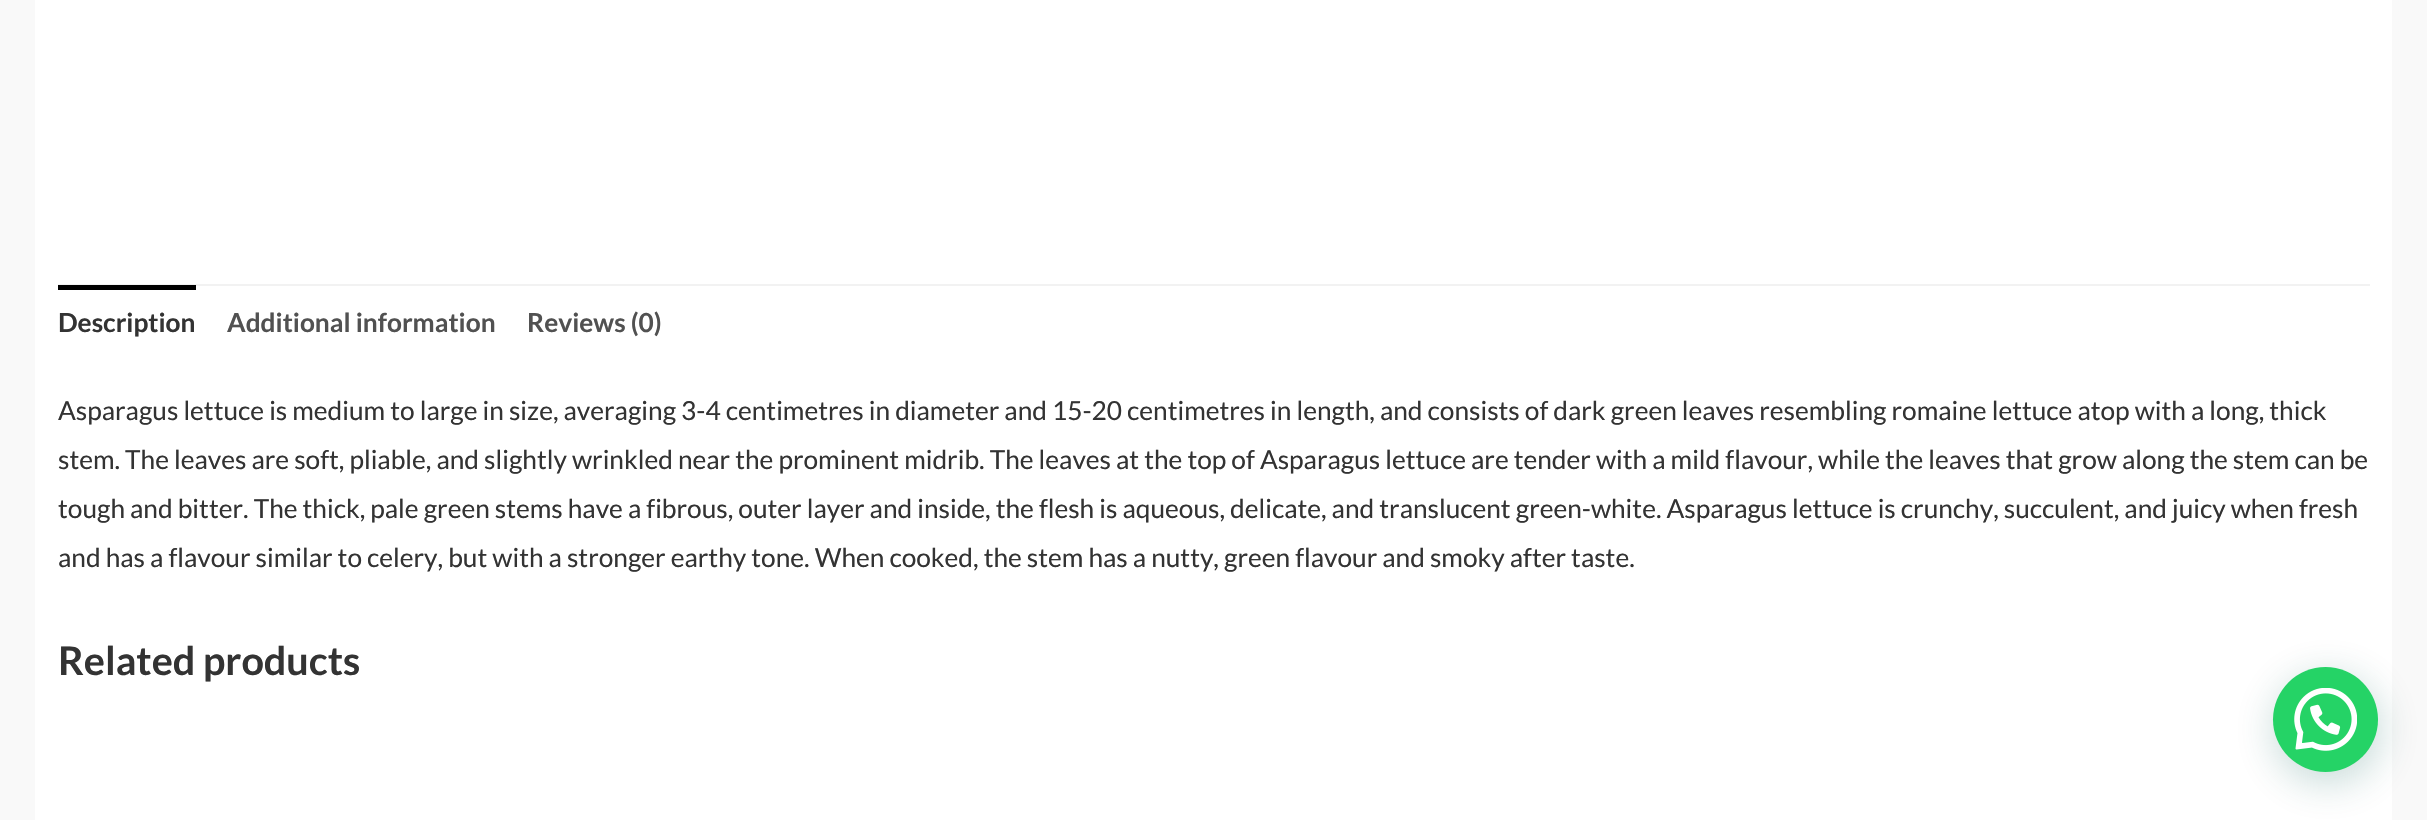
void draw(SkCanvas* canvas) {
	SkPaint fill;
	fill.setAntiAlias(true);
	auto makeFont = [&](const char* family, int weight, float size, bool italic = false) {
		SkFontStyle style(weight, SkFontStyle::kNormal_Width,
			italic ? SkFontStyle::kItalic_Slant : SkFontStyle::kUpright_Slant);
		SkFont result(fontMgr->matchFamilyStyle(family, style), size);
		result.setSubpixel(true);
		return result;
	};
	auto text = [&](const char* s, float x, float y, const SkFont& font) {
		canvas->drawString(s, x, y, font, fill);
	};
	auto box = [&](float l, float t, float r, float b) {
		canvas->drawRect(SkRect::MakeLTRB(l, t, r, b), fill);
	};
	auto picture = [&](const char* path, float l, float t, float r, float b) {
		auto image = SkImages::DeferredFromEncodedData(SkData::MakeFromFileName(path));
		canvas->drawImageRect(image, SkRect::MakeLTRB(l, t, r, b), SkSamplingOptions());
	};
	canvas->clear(0xFFF9F9F9);
	fill.setColor(0xFFFFFFFF);
	box(35, 0, 2392, 820);
	fill.setColor(0xFFF2F2F2);
	box(58, 284, 2370, 286);
	fill.setColor(0xFF000000);
	box(58, 285, 196, 290);
	fill.setColor(0x3D075E54);
	fill.setMaskFilter(SkMaskFilter::MakeBlur(kNormal_SkBlurStyle, 21));
	canvas->drawRoundRect(SkRect::MakeLTRB(2275, 677, 2380, 782), 52.5f, 52.5f, fill);
	fill.setMaskFilter(nullptr);
	fill.setColor(0xFF25D366);
	canvas->drawCircle(2325.5f, 719.5f, 52.5f, fill);
	picture("image0.png", 2294, 688, 2357, 751);
	auto font1 = makeFont("Lato", 700, 26.25f);
	fill.setColor(0xFF333333);
	text("Description", 58, 332, font1);
	fill.setColor(0xFF515151);
	text("Additional information", 227, 332, font1);
	text("Reviews (0)", 527, 332, font1);
	auto font2 = makeFont("Lato", 400, 26.25f);
	fill.setColor(0xFF333333);
	text("Asparagus lettuce is medium to large in size, averaging 3-4 centimetres in diameter and 15-20 centimetres in length, and consists of dark green leaves resembling romaine lettuce atop with a long, thick", 58, 420, font2);
	text("stem. The leaves are soft, pliable, and slightly wrinkled near the prominent midrib. The leaves at the top of Asparagus lettuce are tender with a mild flavour, while the leaves that grow along the stem can be", 58, 469, font2);
	text("tough and bitter. The thick, pale green stems have a fibrous, outer layer and inside, the flesh is aqueous, delicate, and translucent green-white. Asparagus lettuce is crunchy, succulent, and juicy when fresh", 58, 518, font2);
	text("and has a flavour similar to celery, but with a stronger earthy tone. When cooked, the stem has a nutty, green flavour and smoky after taste.", 58, 567, font2);
	auto font3 = makeFont("Lato", 700, 39.5f);
	text("Related products", 58, 675, font3);
}
